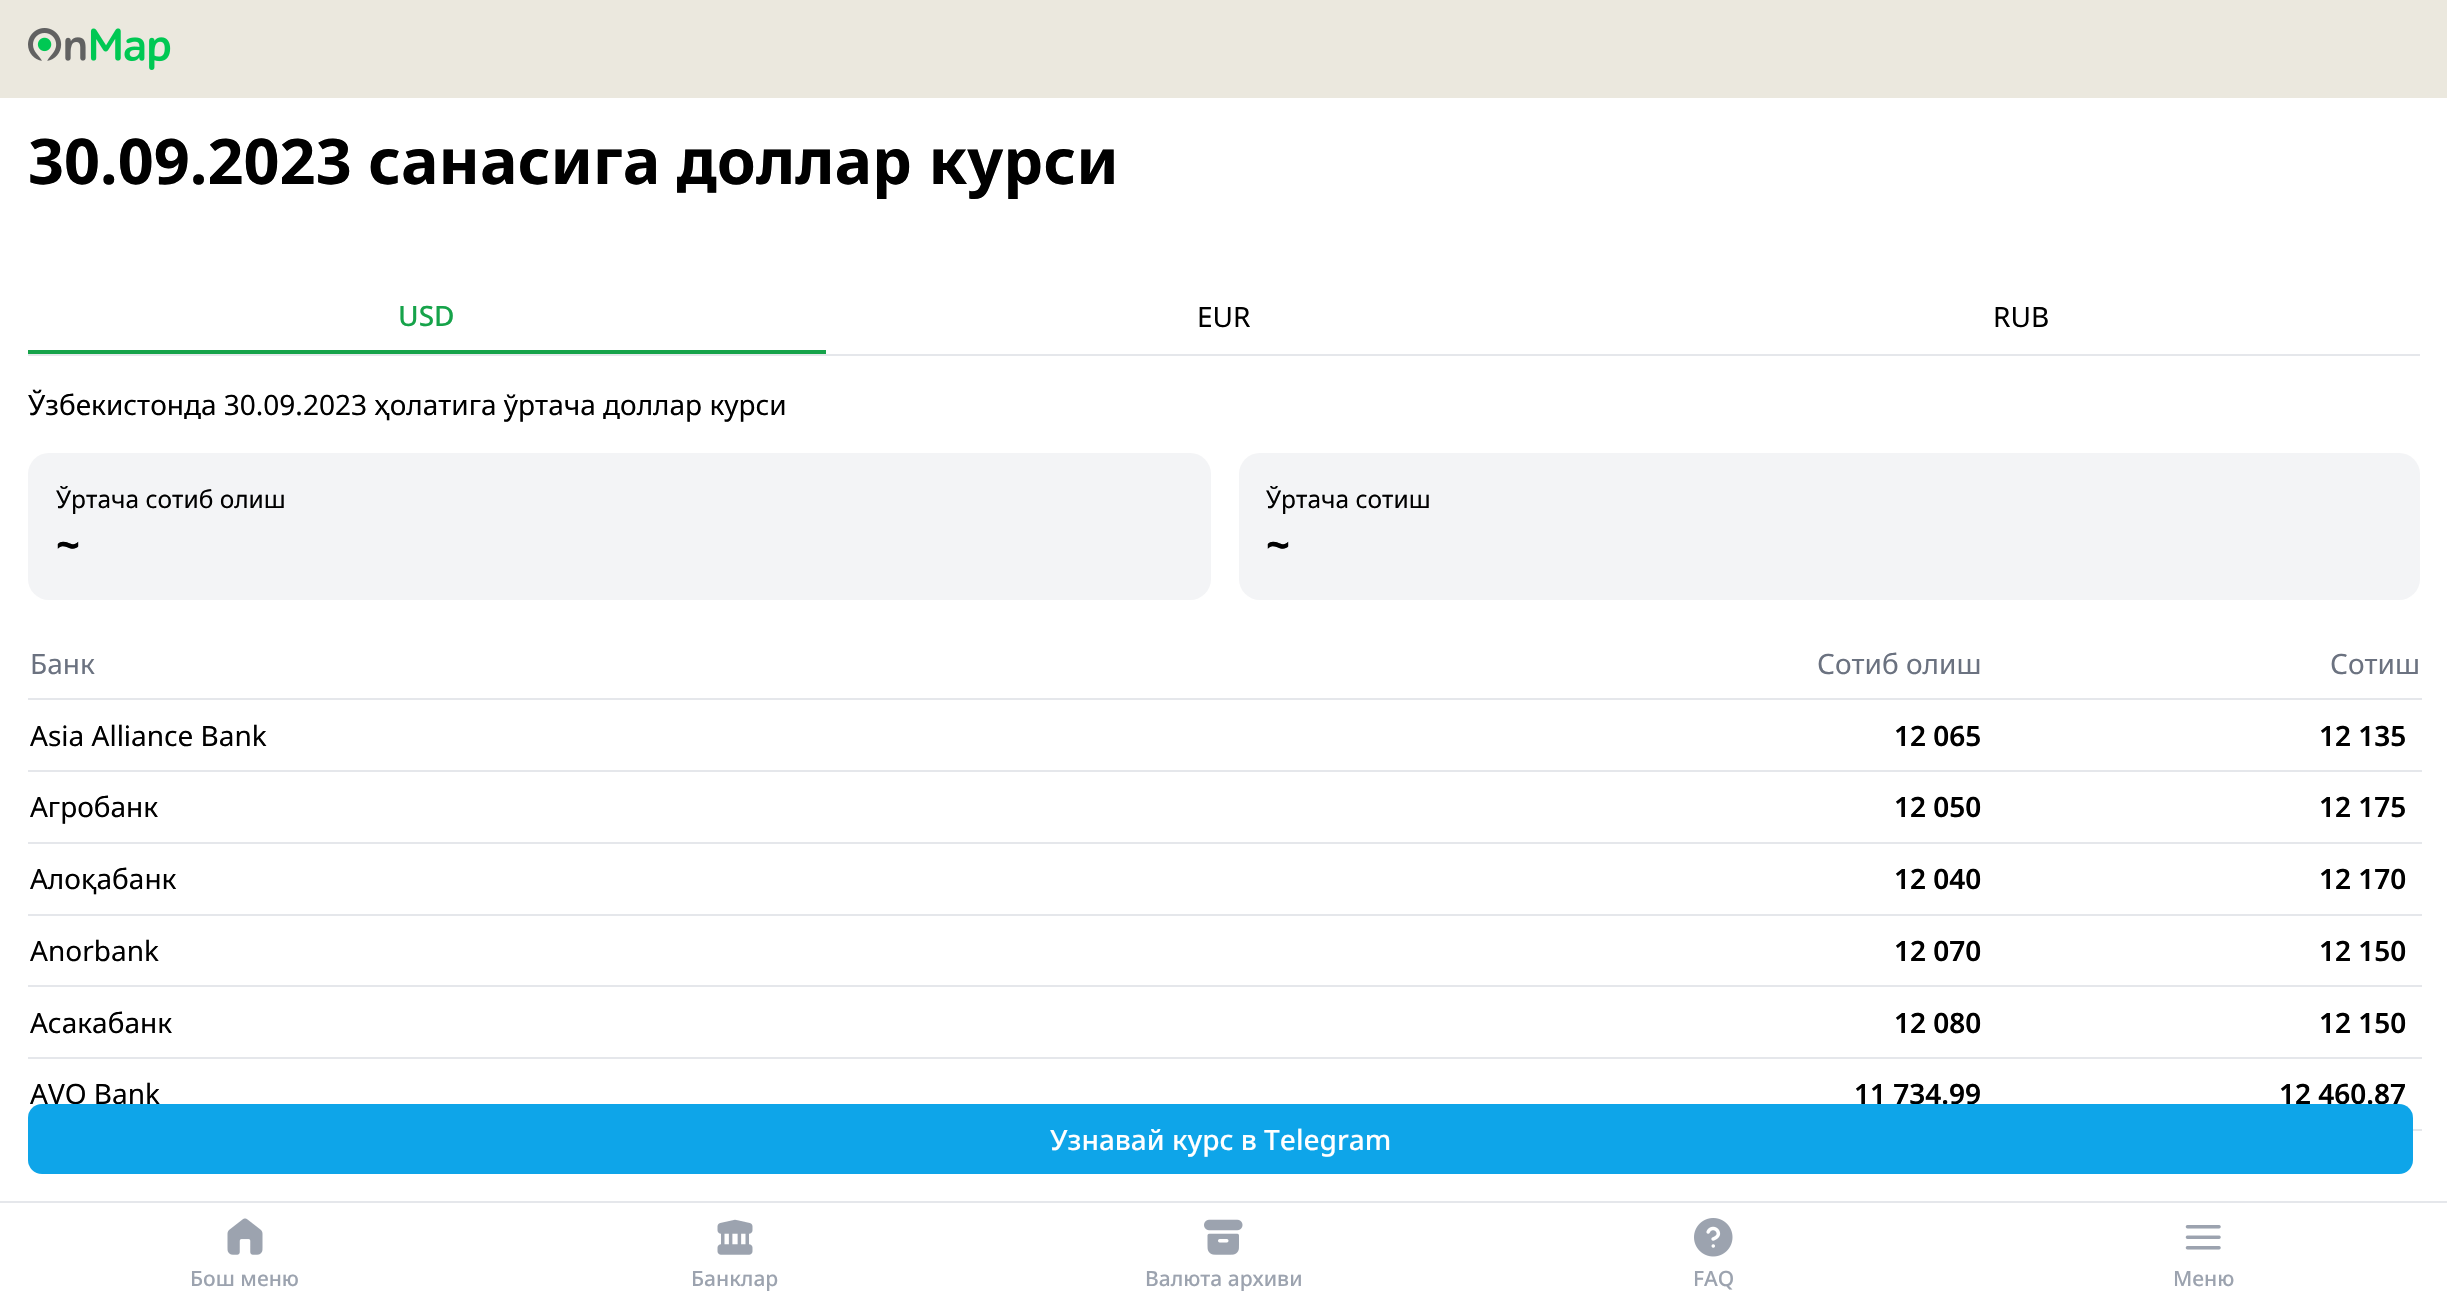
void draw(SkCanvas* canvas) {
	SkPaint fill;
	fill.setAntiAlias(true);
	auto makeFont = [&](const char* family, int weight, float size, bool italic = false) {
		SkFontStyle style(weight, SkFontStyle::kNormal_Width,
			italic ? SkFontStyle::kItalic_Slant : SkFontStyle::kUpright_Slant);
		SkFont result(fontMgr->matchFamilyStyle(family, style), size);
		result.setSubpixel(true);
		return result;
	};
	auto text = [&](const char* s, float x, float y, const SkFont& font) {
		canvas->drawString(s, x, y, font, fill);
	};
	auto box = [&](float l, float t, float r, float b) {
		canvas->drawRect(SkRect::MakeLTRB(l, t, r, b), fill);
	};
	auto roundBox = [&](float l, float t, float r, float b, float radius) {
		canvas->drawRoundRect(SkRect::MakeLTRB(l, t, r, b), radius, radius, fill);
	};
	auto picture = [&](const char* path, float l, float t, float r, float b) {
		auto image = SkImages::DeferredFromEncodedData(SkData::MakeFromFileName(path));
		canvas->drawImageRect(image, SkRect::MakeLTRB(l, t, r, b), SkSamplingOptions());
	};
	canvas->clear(0xFFFFFFFF);
	fill.setColor(0xFFEBE8DE);
	box(0, 0, 2447, 98);
	picture("image0.png", 28, 28, 171, 70);
	fill.setColor(0xFFE5E7EB);
	box(28, 354, 2420, 356);
	fill.setColor(0xFF16A34A);
	box(28, 350, 826, 354);
	fill.setColor(0xFFF3F4F6);
	roundBox(28, 453, 1211, 600, 21);
	roundBox(1239, 453, 2420, 600, 21);
	fill.setColor(0xFFE5E7EB);
	box(28, 698, 2422, 700);
	box(28, 770, 2422, 772);
	box(28, 842, 2422, 844);
	box(28, 914, 2422, 916);
	box(28, 985, 2422, 987);
	box(28, 1057, 2422, 1059);
	box(2413, 1129, 2422, 1131);
	box(0, 1201, 2447, 1203);
	picture("image1.png", 227, 1218, 263, 1255);
	picture("image2.png", 717, 1219, 753, 1255);
	picture("image3.png", 1204, 1219, 1243, 1255);
	picture("image4.png", 1694, 1218, 1733, 1257);
	picture("image5.png", 2185, 1225, 2221, 1250);
	auto font1 = makeFont("Noto Sans", 700, 63);
	fill.setColor(0xFF000000);
	text("30.09.2023 санасига доллар курси", 28, 184, font1);
	auto font2 = makeFont("Noto Sans", 500, 28);
	fill.setColor(0xFF16A34A);
	text("USD", 398, 326, font2);
	auto font3 = makeFont("Noto Sans", 400, 28);
	fill.setColor(0xFF000000);
	text("EUR", 1197, 327, font3);
	text("RUB", 1993, 327, font3);
	text("Ўзбекистонда 30.09.2023 ҳолатига ўртача доллар курси", 28, 415, font3);
	auto font4 = makeFont("Noto Sans", 400, 24.5f);
	text("Ўртача сотиб олиш", 56, 508, font4);
	auto font5 = makeFont("Noto Sans", 700, 42);
	text("~", 56, 560, font5);
	text("Ўртача сотиш", 1266, 508, font4);
	text("~", 1266, 560, font5);
	fill.setColor(0xFF6B7280);
	text("Банк", 30, 674, font3);
	text("Сотиб олиш", 1817, 674, font3);
	text("Сотиш", 2330, 674, font3);
	fill.setColor(0xFF000000);
	text("Asia Alliance Bank", 30, 746, font3);
	auto font6 = makeFont("Noto Sans", 600, 28);
	text("12 065", 1894, 746, font6);
	text("12 135", 2319, 746, font6);
	text("Агробанк", 30, 817, font3);
	text("12 050", 1894, 817, font6);
	text("12 175", 2319, 817, font6);
	text("Алоқабанк", 30, 889, font3);
	text("12 040", 1894, 889, font6);
	text("12 170", 2319, 889, font6);
	text("Anorbank", 30, 961, font3);
	text("12 070", 1894, 961, font6);
	text("12 150", 2319, 961, font6);
	text("Асакабанк", 30, 1033, font3);
	text("12 080", 1894, 1033, font6);
	text("12 150", 2319, 1033, font6);
	text("AVO Bank", 30, 1104, font3);
	text("11 734.99", 1854, 1104, font6);
	text("12 460.87", 2279, 1104, font6);
	fill.setColor(0xFF0EA5E9);
	roundBox(28, 1104, 2413, 1174, 14);
	fill.setColor(0xFFFFFFFF);
	text("Узнавай курс в Telegram", 1050, 1150, font2);
	auto font7 = makeFont("Noto Sans", 500, 21);
	fill.setColor(0xFF9CA3AF);
	text("Бош меню", 190, 1286, font7);
	text("Банклар", 691, 1286, font7);
	text("Валюта архиви", 1145, 1286, font7);
	text("FAQ", 1693, 1286, font7);
	text("Меню", 2173, 1286, font7);
}
